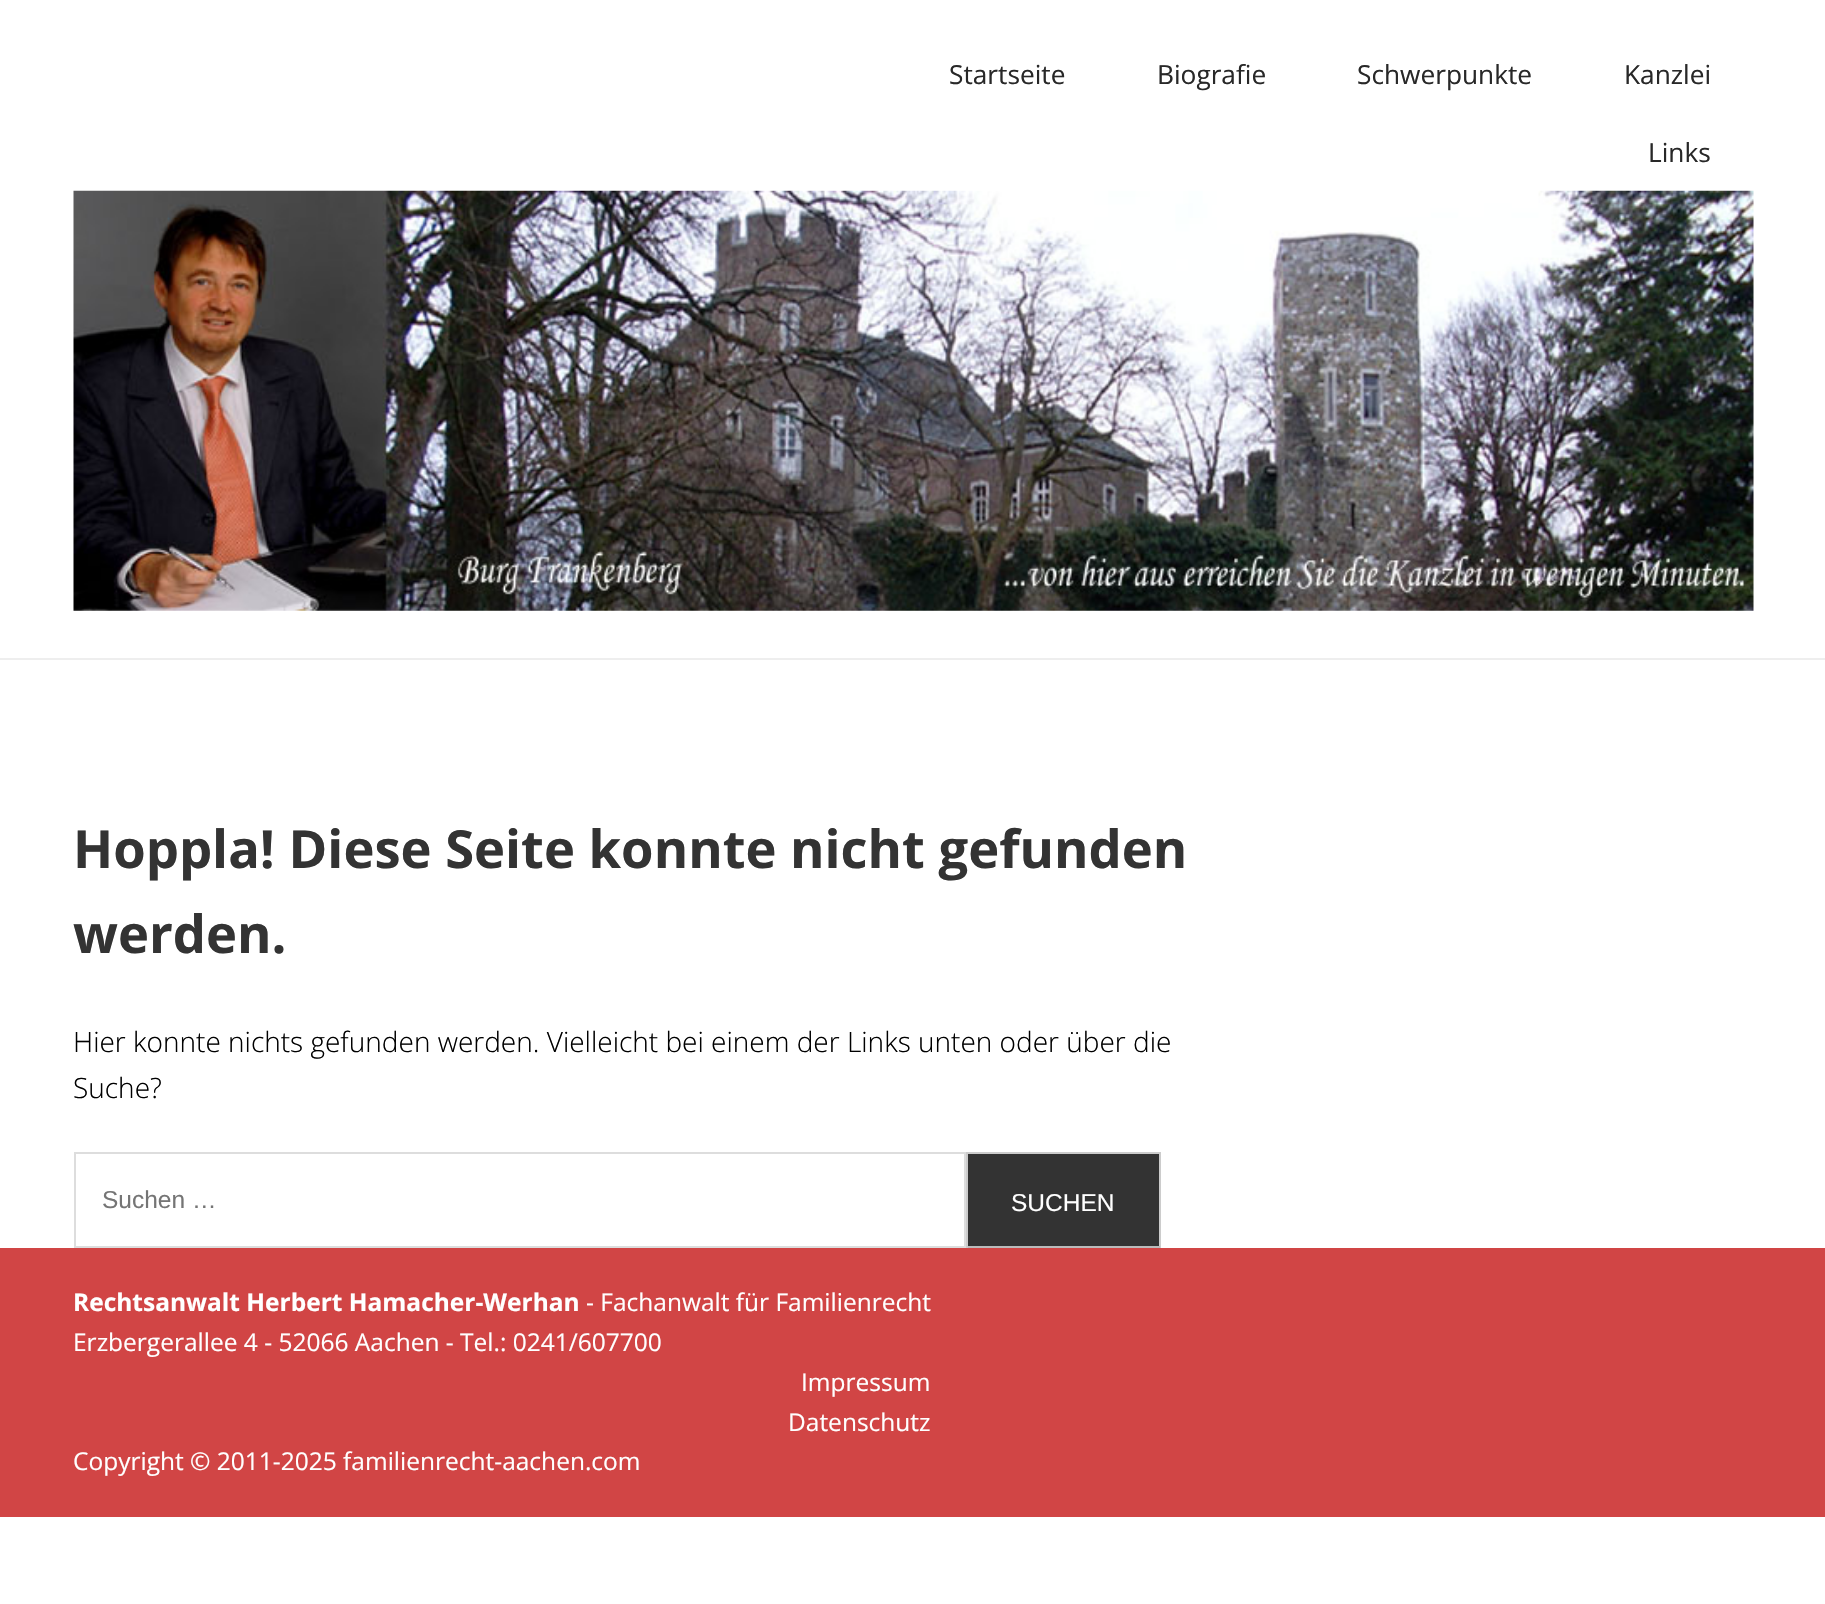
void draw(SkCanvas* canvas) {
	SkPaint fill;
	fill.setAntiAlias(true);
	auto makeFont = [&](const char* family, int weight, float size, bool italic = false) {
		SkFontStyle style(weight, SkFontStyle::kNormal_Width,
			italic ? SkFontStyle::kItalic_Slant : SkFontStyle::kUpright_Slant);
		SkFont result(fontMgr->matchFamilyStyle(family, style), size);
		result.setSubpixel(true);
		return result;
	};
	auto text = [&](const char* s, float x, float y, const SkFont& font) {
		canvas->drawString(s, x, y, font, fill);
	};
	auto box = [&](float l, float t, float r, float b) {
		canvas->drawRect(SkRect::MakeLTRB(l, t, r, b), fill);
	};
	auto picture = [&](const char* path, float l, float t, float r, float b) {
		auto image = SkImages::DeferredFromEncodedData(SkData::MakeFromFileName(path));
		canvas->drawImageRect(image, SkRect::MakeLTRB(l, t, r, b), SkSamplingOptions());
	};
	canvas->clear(0xFFFFFFFF);
	fill.setColor(0xFFEEEEEE);
	box(0, 658, 1825, 660);
	picture("image0.png", 73, 190, 1754, 611);
	fill.setStyle(SkPaint::kStroke_Style);
	fill.setStrokeWidth(2);
	fill.setColor(0xFFDDDDDD);
	canvas->drawRect(SkRect::MakeLTRB(75, 1153, 965, 1247), fill);
	fill.setStyle(SkPaint::kFill_Style);
	fill.setColor(0xFF333333);
	box(968, 1154, 1159, 1246);
	fill.setColor(0xFFCCCCCC);
	box(966, 1152, 1160, 1154);
	box(1159, 1152, 1161, 1248);
	fill.setColor(0xFFBBBBBB);
	box(966, 1246, 1160, 1248);
	fill.setColor(0xFFCCCCCC);
	box(966, 1152, 968, 1248);
	fill.setColor(0xFFD14545);
	box(0, 1248, 1825, 1517);
	auto font1 = makeFont("Open Sans", 400, 26.25f);
	fill.setColor(0xFF282828);
	text("Startseite", 949, 84, font1);
	text("Biografie", 1157, 84, font1);
	text("Schwerpunkte", 1357, 84, font1);
	text("Kanzlei", 1624, 84, font1);
	text("Links", 1648, 162, font1);
	auto font2 = makeFont("Open Sans", 700, 52.5f);
	fill.setColor(0xFF333333);
	text("Hoppla! Diese Seite konnte nicht gefunden", 73, 868, font2);
	text("werden.", 73, 953, font2);
	auto font3 = makeFont("Open Sans", 300, 28);
	fill.setColor(0xFF000000);
	text("Hier konnte nichts gefunden werden. Vielleicht bei einem der Links unten oder über die", 73, 1052, font3);
	text("Suche?", 73, 1098, font3);
	auto font4 = makeFont("Liberation Sans", 400, 24.5f);
	fill.setColor(0xFF757575);
	text("Suchen …", 102, 1208, font4);
	fill.setColor(0xFFFFFFFF);
	text("SUCHEN", 1011, 1211, font4);
	auto font5 = makeFont("Open Sans", 700, 24.5f);
	text("Rechtsanwalt Herbert Hamacher-Werhan", 73, 1311, font5);
	auto font6 = makeFont("Open Sans", 400, 24.5f);
	text("- Fachanwalt für Familienrecht", 586, 1311, font6);
	text("Erzbergerallee 4 - 52066 Aachen - Tel.: 0241/607700", 73, 1351, font6);
	text("Impressum", 801, 1391, font6);
	text("Datenschutz", 788, 1431, font6);
	text("Copyright © 2011-2025 familienrecht-aachen.com", 73, 1470, font6);
}
